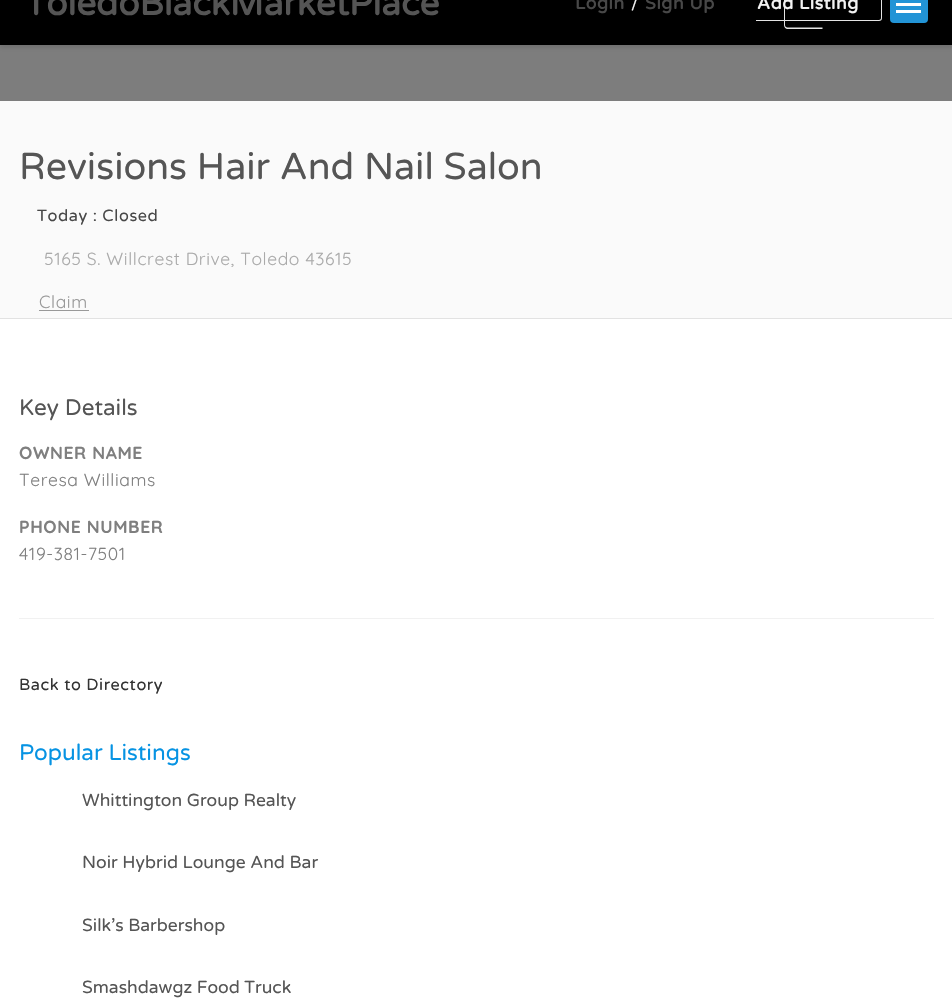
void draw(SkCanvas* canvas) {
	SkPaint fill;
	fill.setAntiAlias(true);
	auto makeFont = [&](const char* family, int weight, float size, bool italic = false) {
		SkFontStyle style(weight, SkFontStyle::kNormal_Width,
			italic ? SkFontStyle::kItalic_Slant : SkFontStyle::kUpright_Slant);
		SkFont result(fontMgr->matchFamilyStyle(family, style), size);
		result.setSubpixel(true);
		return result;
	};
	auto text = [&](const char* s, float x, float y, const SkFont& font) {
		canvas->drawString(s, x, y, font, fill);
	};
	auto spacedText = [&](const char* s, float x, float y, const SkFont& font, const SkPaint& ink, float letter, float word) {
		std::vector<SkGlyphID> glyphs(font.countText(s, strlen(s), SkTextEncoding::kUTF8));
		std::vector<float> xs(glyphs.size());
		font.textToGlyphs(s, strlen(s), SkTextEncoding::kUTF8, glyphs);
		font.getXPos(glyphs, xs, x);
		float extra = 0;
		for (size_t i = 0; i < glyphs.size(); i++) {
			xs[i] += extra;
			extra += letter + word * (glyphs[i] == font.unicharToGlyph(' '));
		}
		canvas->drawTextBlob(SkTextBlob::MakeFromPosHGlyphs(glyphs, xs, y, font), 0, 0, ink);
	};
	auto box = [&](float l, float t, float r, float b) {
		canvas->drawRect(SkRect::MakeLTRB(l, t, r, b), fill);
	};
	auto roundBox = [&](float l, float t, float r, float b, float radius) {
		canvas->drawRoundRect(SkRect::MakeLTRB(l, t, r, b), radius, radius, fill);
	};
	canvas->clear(0xFFFFFFFF);
	fill.setColor(0xFF7D7D7D);
	box(0, 45, 952, 101);
	fill.setColor(0x1A000000);
	fill.setMaskFilter(SkMaskFilter::MakeBlur(kNormal_SkBlurStyle, 2));
	canvas->drawRect(SkRect::MakeLTRB(0, -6, 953, 48), fill);
	fill.setMaskFilter(nullptr);
	fill.setColor(0xFF000000);
	box(0, 0, 952, 45);
	fill.setColor(0xFFE4E4E4);
	canvas->drawPath(SkPathBuilder(SkPathFillType::kEvenOdd).moveTo(787.5f, -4).lineTo(822.5f, -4).lineTo(822.5f, 29).lineTo(787.5f, 29).cubicTo(785.5f, 29, 784, 27, 784, 25).lineTo(784, 0).cubicTo(784, -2, 785.5f, -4, 787.5f, -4).close().moveTo(787.5f, -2.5f).lineTo(822.5f, -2.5f).lineTo(822.5f, 27.5f).lineTo(787.5f, 27.5f).cubicTo(786, 27.5f, 785, 26.5f, 785, 25).lineTo(785, 0).cubicTo(785, -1.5f, 786, -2.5f, 787.5f, -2.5f).close().detach(), fill);
	canvas->drawPath(SkPathBuilder(SkPathFillType::kEvenOdd).moveTo(756, -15).lineTo(879, -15).cubicTo(881, -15, 882, -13, 882, -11).lineTo(882, 18).cubicTo(882, 20, 881, 21, 879, 21).lineTo(756, 21).close().moveTo(756, -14).lineTo(879, -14).cubicTo(880, -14, 881, -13, 881, -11).lineTo(881, 18).cubicTo(881, 19, 880, 20, 879, 20).lineTo(756, 20).close().detach(), fill);
	fill.setColor(0xFF2294D6);
	roundBox(890, -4, 928, 23, 4);
	fill.setColor(0xFFFFFFFF);
	box(896, 3, 921, 6);
	box(896, 10, 921, 13);
	fill.setColor(0xFFFAFAFA);
	box(0, 101, 952, 318);
	fill.setColor(0xFFE2E2E2);
	box(0, 318, 952, 319);
	fill.setColor(0xFF999999);
	box(39, 310, 89, 311);
	fill.setColor(0xFFF1F1F1);
	box(19, 618, 934, 619);
	auto font1 = makeFont("Varela Round", 700, 35);
	fill.setColor(0xFF555555);
	text("ToledoBlackMarketPlace", 25, 15, font1);
	auto font2 = makeFont("Varela Round", 700, 17.5f);
	fill.setColor(0xFF484848);
	spacedText("Login", 575, 9, font2, fill, 0.6f, 0);
	auto font3 = makeFont("Varela Round", 400, 16.25f);
	fill.setColor(0xFFF2F2F2);
	spacedText("/", 631, 9, font3, fill, 0.6f, 0);
	fill.setColor(0xFF484848);
	spacedText("Sign Up", 645, 9, font2, fill, 0.6f, 0);
	fill.setColor(0xFFF2F2F2);
	spacedText("Add Listing", 757, 9, font2, fill, 0.6f, 0);
	auto font4 = makeFont("Varela Round", 400, 37.5f);
	fill.setColor(0xFF555555);
	text("Revisions Hair And Nail Salon", 19, 179, font4);
	fill.setColor(0xFF484848);
	spacedText("Today : Closed", 37, 221, font3, fill, 0.6f, 0);
	auto font5 = makeFont("Quicksand", 400, 17.5f);
	fill.setColor(0xFFAAAAAA);
	spacedText("5165 S. Willcrest Drive, Toledo 43615", 44, 265, font5, fill, 0.6f, 0);
	fill.setColor(0xFF999999);
	spacedText("Claim", 39, 308, font5, fill, 0.6f, 0);
	auto font6 = makeFont("Varela Round", 400, 22.5f);
	fill.setColor(0xFF555555);
	text("Key Details", 19, 415, font6);
	auto font7 = makeFont("Quicksand", 700, 17.5f);
	fill.setColor(0xFF7F7F7F);
	spacedText("OWNER NAME", 19, 459, font7, fill, 0.6f, 0);
	spacedText("Teresa Williams", 19, 486, font5, fill, 0.6f, 0);
	spacedText("PHONE NUMBER", 19, 533, font7, fill, 0.6f, 0);
	spacedText("419-381-7501", 19, 560, font5, fill, 0.6f, 0);
	fill.setColor(0xFF333333);
	spacedText("Back to Directory", 19, 690, font3, fill, 0.6f, 0);
	fill.setColor(0xFF0693E3);
	text("Popular Listings", 19, 760, font6);
	auto font8 = makeFont("Varela Round", 400, 17.5f);
	fill.setColor(0xFF555555);
	text("Whittington Group Realty", 82, 806, font8);
	text("Noir Hybrid Lounge And Bar", 82, 868, font8);
	text("Silk’s Barbershop", 82, 931, font8);
	text("Smashdawgz Food Truck", 82, 993, font8);
}
